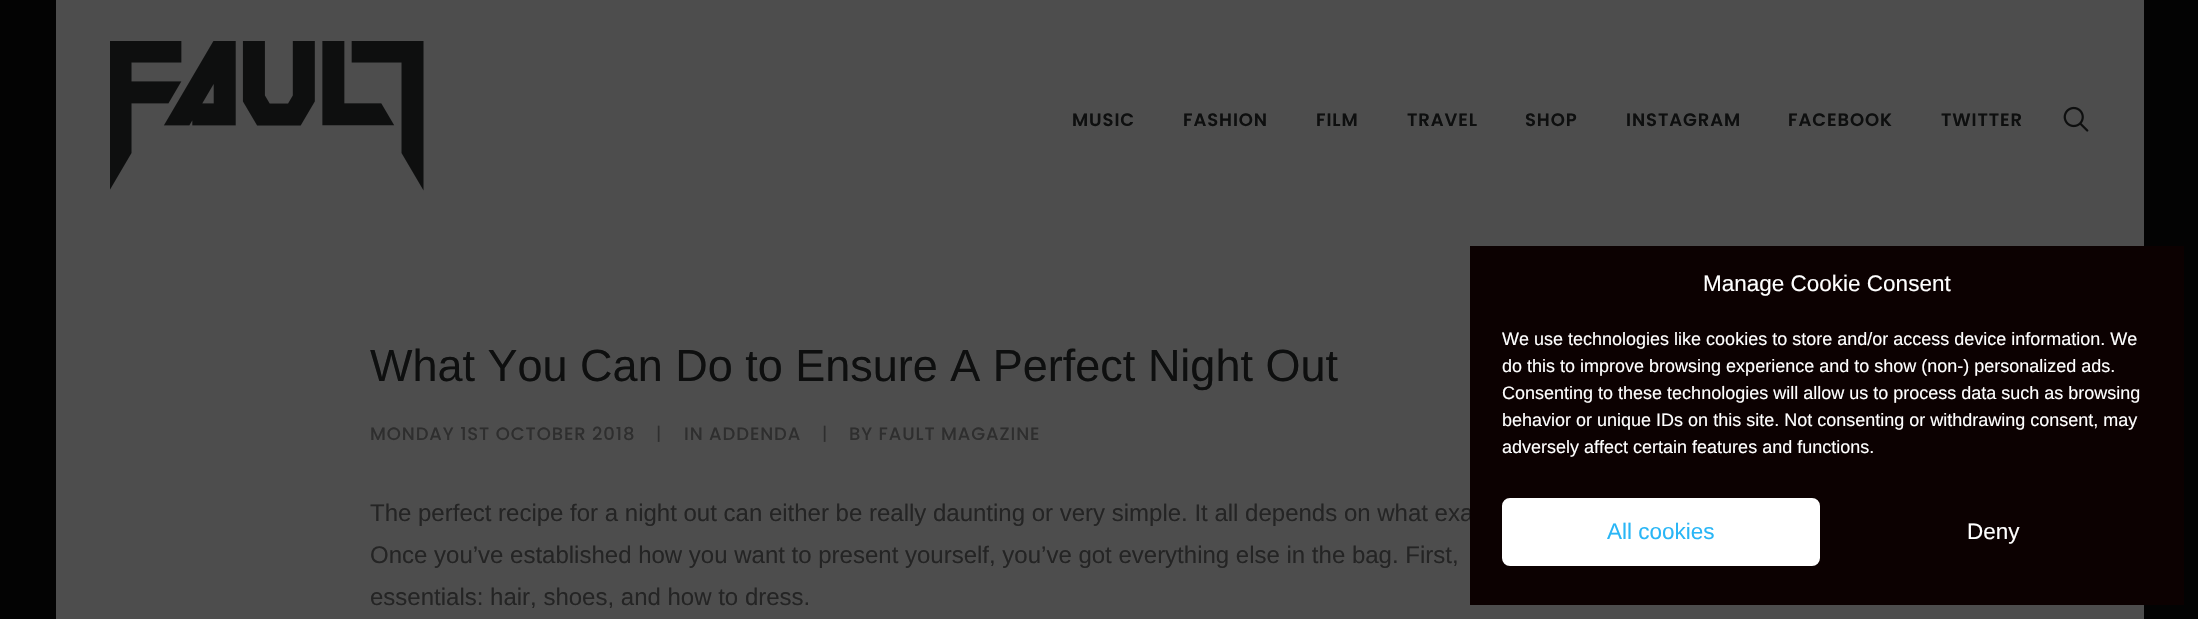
void draw(SkCanvas* canvas) {
	SkPaint fill;
	fill.setAntiAlias(true);
	auto makeFont = [&](const char* family, int weight, float size, bool italic = false) {
		SkFontStyle style(weight, SkFontStyle::kNormal_Width,
			italic ? SkFontStyle::kItalic_Slant : SkFontStyle::kUpright_Slant);
		SkFont result(fontMgr->matchFamilyStyle(family, style), size);
		result.setSubpixel(true);
		return result;
	};
	auto text = [&](const char* s, float x, float y, const SkFont& font) {
		canvas->drawString(s, x, y, font, fill);
	};
	auto spacedText = [&](const char* s, float x, float y, const SkFont& font, const SkPaint& ink, float letter, float word) {
		std::vector<SkGlyphID> glyphs(font.countText(s, strlen(s), SkTextEncoding::kUTF8));
		std::vector<float> xs(glyphs.size());
		font.textToGlyphs(s, strlen(s), SkTextEncoding::kUTF8, glyphs);
		font.getXPos(glyphs, xs, x);
		float extra = 0;
		for (size_t i = 0; i < glyphs.size(); i++) {
			xs[i] += extra;
			extra += letter + word * (glyphs[i] == font.unicharToGlyph(' '));
		}
		canvas->drawTextBlob(SkTextBlob::MakeFromPosHGlyphs(glyphs, xs, y, font), 0, 0, ink);
	};
	auto box = [&](float l, float t, float r, float b) {
		canvas->drawRect(SkRect::MakeLTRB(l, t, r, b), fill);
	};
	auto picture = [&](const char* path, float l, float t, float r, float b) {
		auto image = SkImages::DeferredFromEncodedData(SkData::MakeFromFileName(path));
		canvas->drawImageRect(image, SkRect::MakeLTRB(l, t, r, b), SkSamplingOptions());
	};
	canvas->clear(0xFF030303);
	fill.setColor(0xFF4D4D4D);
	box(56, 0, 2144, 619);
	picture("image0.png", 110, 41, 424, 191);
	picture("image1.png", 2063, 106, 2089, 132);
	auto font1 = makeFont("Poppins", 600, 18);
	fill.setColor(0xFF0E0F0F);
	spacedText("MUSIC", 1072, 126, font1, fill, 0.9f, 0);
	spacedText("FASHION", 1183, 126, font1, fill, 0.9f, 0);
	spacedText("FILM", 1316, 126, font1, fill, 0.9f, 0);
	spacedText("TRAVEL", 1407, 126, font1, fill, 0.9f, 0);
	spacedText("SHOP", 1525, 126, font1, fill, 0.9f, 0);
	spacedText("INSTAGRAM", 1626, 126, font1, fill, 0.9f, 0);
	spacedText("FACEBOOK", 1788, 126, font1, fill, 0.9f, 0);
	spacedText("TWITTER", 1941, 126, font1, fill, 0.9f, 0);
	auto font2 = makeFont("Liberation Sans", 400, 45);
	text("What You Can Do to Ensure A Perfect Night Out", 370, 381, font2);
	auto font3 = makeFont("Poppins", 500, 18);
	fill.setColor(0xFF2E2E2E);
	spacedText("MONDAY 1ST OCTOBER 2018", 370, 440, font3, fill, 0.9f, 0);
	auto font4 = makeFont("Poppins", 400, 18);
	spacedText("|", 656, 440, font4, fill, 0.9f, 0);
	spacedText("IN ADDENDA", 684, 440, font3, fill, 0.9f, 0);
	spacedText("|", 822, 440, font4, fill, 0.9f, 0);
	spacedText("BY FAULT MAGAZINE", 849, 440, font3, fill, 0.9f, 0);
	auto font5 = makeFont("Liberation Sans", 400, 24);
	fill.setColor(0xFF242424);
	text("The perfect recipe for a night out can either be really daunting or very simple. It all depends on what exa", 370, 521, font5);
	text("Once you’ve established how you want to present yourself, you’ve got everything else in the bag. First,", 370, 563, font5);
	text("essentials: hair, shoes, and how to dress.", 370, 605, font5);
	fill.setColor(0xFF0C0101);
	box(1470, 246, 2184, 605);
	auto font6 = makeFont("Liberation Sans", 400, 22.5f);
	fill.setColor(0xFFFFFFFF);
	text("Manage Cookie Consent", 1703, 291, font6);
	auto font7 = makeFont("Liberation Sans", 400, 18);
	text("We use technologies like cookies to store and/or access device information. We", 1502, 345, font7);
	text("do this to improve browsing experience and to show (non-) personalized ads.", 1502, 372, font7);
	text("Consenting to these technologies will allow us to process data such as browsing", 1502, 399, font7);
	text("behavior or unique IDs on this site. Not consenting or withdrawing consent, may", 1502, 426, font7);
	text("adversely affect certain features and functions.", 1502, 453, font7);
	canvas->drawRoundRect(SkRect::MakeLTRB(1503, 499, 1819, 565), 7, 7, fill);
	fill.setStyle(SkPaint::kStroke_Style);
	fill.setStrokeWidth(2);
	canvas->drawRoundRect(SkRect::MakeLTRB(1503, 499, 1819, 565), 7, 7, fill);
	fill.setStyle(SkPaint::kFill_Style);
	fill.setColor(0xFF29B6F6);
	text("All cookies", 1607, 539, font6);
	fill.setColor(0xFFFFFFFF);
	text("Deny", 1967, 539, font6);
}
